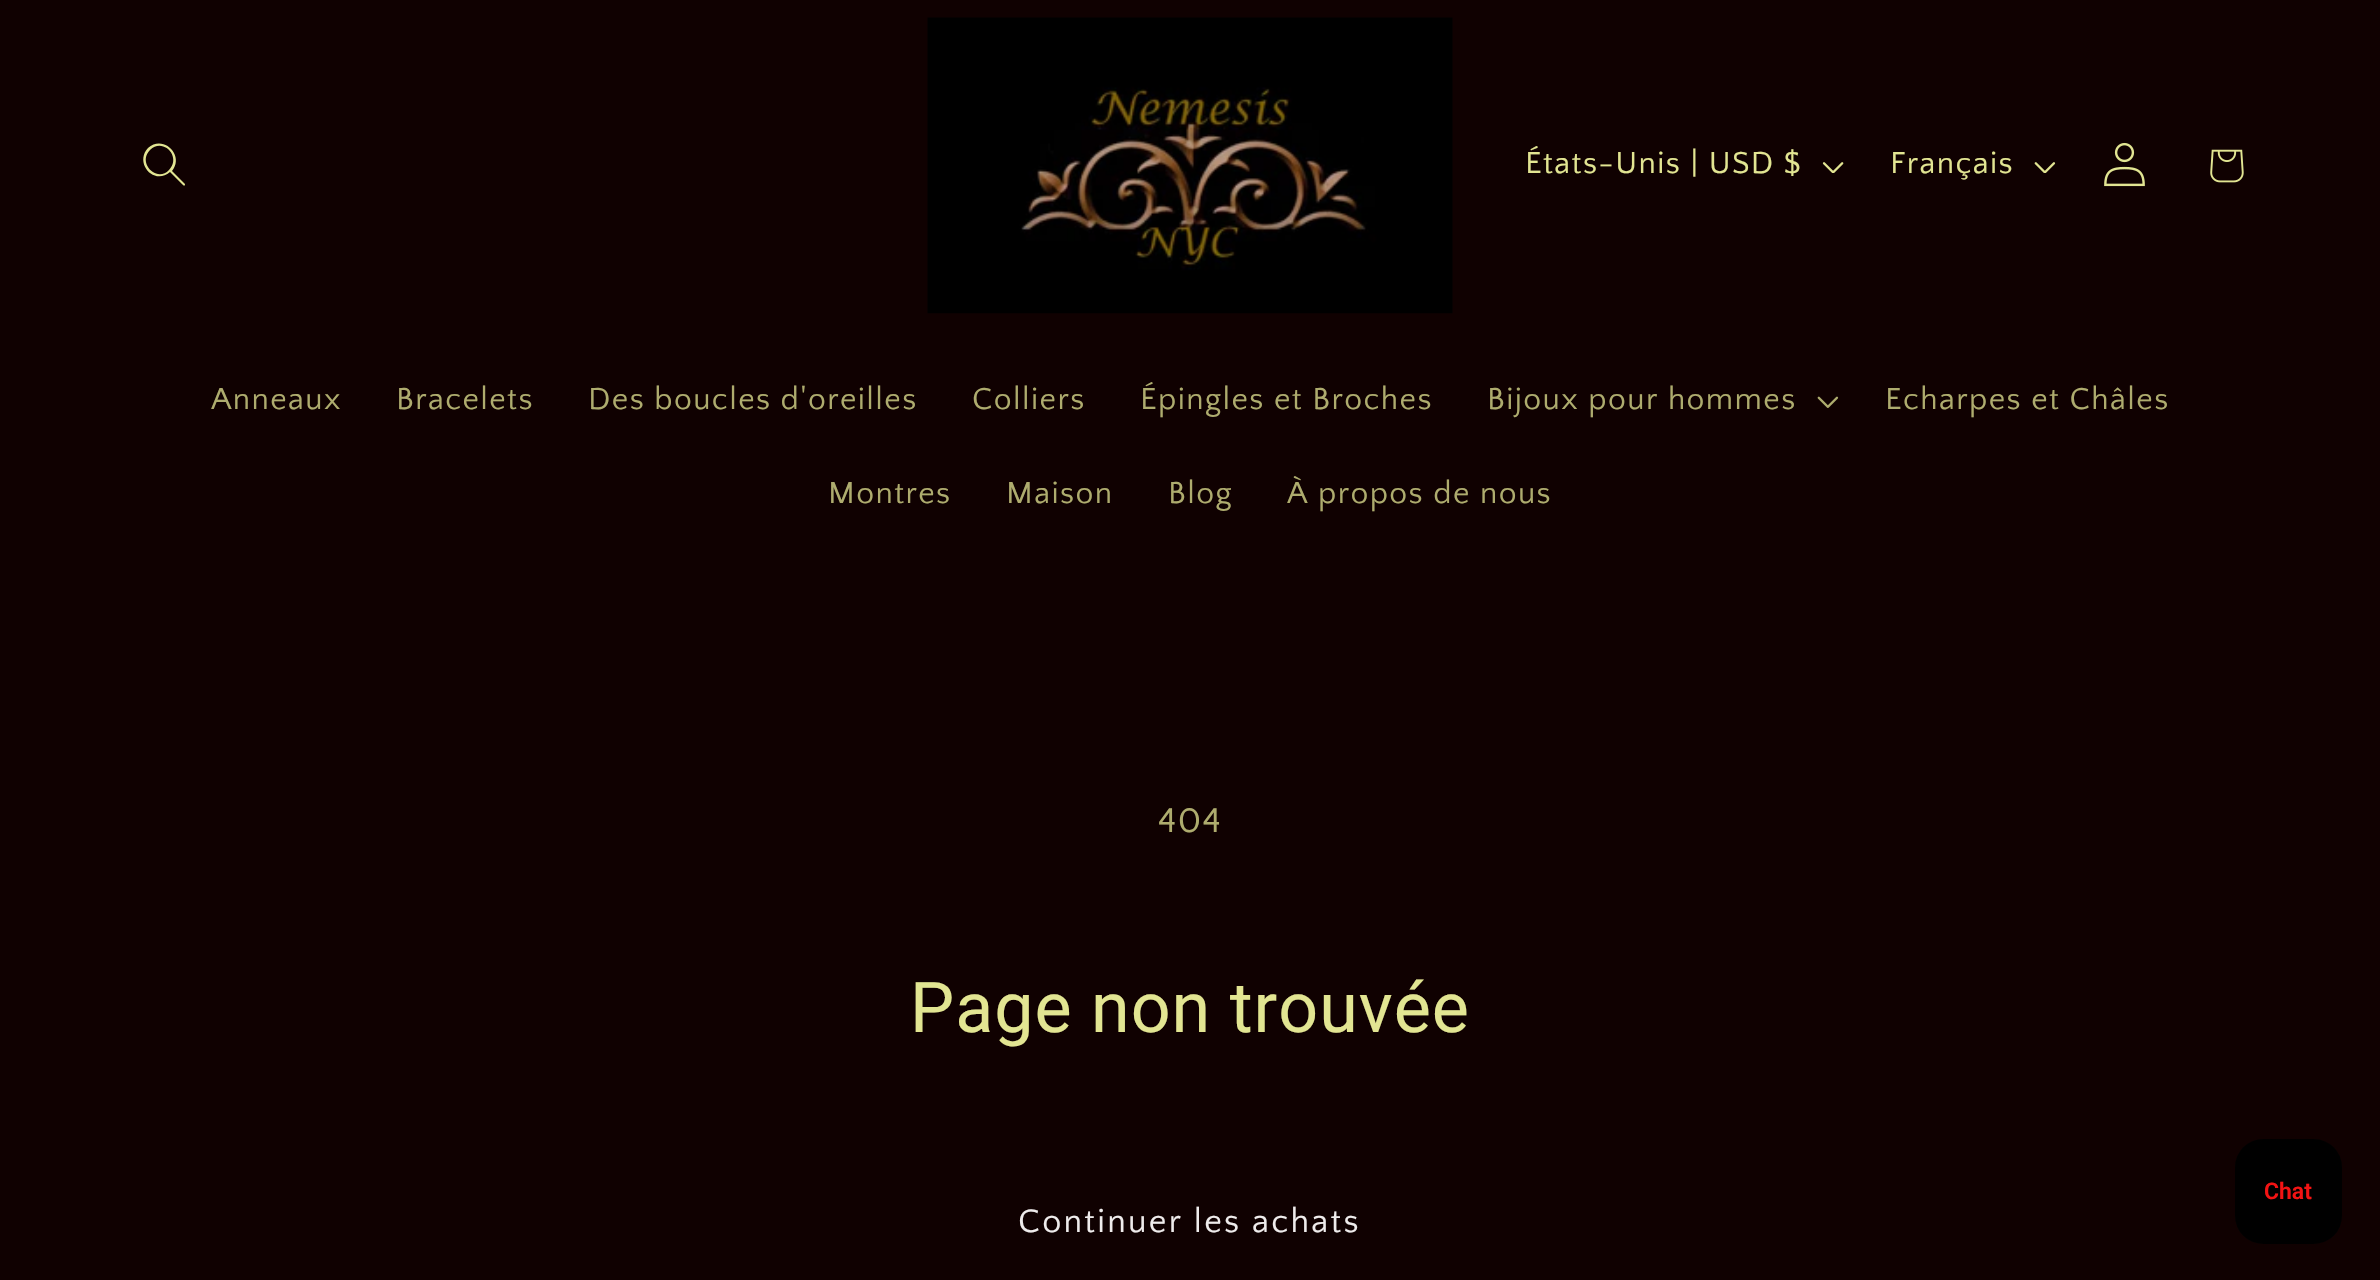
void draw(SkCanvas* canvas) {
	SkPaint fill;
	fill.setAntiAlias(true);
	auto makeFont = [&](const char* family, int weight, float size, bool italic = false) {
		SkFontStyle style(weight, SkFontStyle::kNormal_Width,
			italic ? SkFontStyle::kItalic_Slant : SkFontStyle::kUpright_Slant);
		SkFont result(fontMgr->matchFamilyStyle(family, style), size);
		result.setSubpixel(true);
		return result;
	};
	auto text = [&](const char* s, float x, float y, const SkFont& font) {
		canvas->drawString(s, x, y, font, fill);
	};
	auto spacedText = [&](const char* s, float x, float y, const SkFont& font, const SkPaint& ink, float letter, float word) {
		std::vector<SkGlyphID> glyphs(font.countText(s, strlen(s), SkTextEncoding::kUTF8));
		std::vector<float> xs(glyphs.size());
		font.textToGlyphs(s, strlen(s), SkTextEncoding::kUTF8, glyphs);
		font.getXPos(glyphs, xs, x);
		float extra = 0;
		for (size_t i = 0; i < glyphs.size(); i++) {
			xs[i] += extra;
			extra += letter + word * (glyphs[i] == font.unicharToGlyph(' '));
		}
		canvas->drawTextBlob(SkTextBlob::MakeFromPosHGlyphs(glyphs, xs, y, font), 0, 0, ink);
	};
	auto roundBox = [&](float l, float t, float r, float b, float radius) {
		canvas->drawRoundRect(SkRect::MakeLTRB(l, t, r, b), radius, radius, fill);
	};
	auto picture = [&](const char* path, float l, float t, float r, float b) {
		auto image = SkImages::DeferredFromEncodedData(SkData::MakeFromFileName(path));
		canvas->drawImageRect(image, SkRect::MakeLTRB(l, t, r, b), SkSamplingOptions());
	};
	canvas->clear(0xFF100101);
	fill.setColor(0xFFE2E592);
	canvas->drawPath(SkPathBuilder(SkPathFillType::kEvenOdd).moveTo(169, 170).cubicTo(157, 183, 137, 163, 150, 150).cubicTo(163, 137, 182, 157, 169, 170).moveTo(170, 172).cubicTo(154, 186, 134, 163, 148, 148).cubicTo(163, 134, 185, 155, 172, 171).lineTo(185, 184).cubicTo(185, 186, 184, 186, 183, 185).close().detach(), fill);
	picture("image0.png", 927, 17, 1453, 314);
	picture("image1.png", 1822, 162, 1844, 173);
	picture("image2.png", 2034, 162, 2056, 173);
	picture("image3.png", 2104, 142, 2145, 187);
	picture("image4.png", 2210, 149, 2244, 183);
	picture("image5.png", 1817, 396, 1839, 408);
	fill.setColor(0xFF000000);
	roundBox(2235, 1139, 2342, 1244, 28);
	auto font1 = makeFont("Quattrocento Sans", 400, 31.8f);
	fill.setColor(0xFFE2E592);
	spacedText("États-Unis | USD $", 1525, 173, font1, fill, 1.4f, 0);
	spacedText("Français", 1890, 173, font1, fill, 1.4f, 0);
	fill.setColor(0xFFAEAC6E);
	spacedText("Anneaux", 211, 409, font1, fill, 1.4f, 0);
	spacedText("Bracelets", 396, 409, font1, fill, 1.4f, 0);
	spacedText("Des boucles d'oreilles", 588, 409, font1, fill, 1.4f, 0);
	spacedText("Colliers", 972, 409, font1, fill, 1.4f, 0);
	spacedText("Épingles et Broches", 1140, 409, font1, fill, 1.4f, 0);
	spacedText("Bijoux pour hommes", 1487, 409, font1, fill, 1.4f, 0);
	spacedText("Echarpes et Châles", 1885, 409, font1, fill, 1.4f, 0);
	spacedText("Montres", 828, 503, font1, fill, 1.4f, 0);
	spacedText("Maison", 1006, 503, font1, fill, 1.4f, 0);
	spacedText("Blog", 1168, 503, font1, fill, 1.4f, 0);
	spacedText("À propos de nous", 1287, 503, font1, fill, 1.4f, 0);
	auto font2 = makeFont("Quattrocento Sans", 400, 36);
	spacedText("404", 1158, 832, font2, fill, 1.4f, 0);
	auto font3 = makeFont("Roboto", 400, 70);
	fill.setColor(0xFFE2E592);
	spacedText("Page non trouvée", 910, 1032, font3, fill, 1, 0);
	auto font4 = makeFont("Quattrocento Sans", 400, 34.1f);
	fill.setColor(0xFFEFECEC);
	spacedText("Continuer les achats", 1018, 1232, font4, fill, 2.25f, 0);
	auto font5 = makeFont("Roboto", 600, 23);
	fill.setColor(0xFFF21313);
	text("Chat", 2264, 1199, font5);
}
